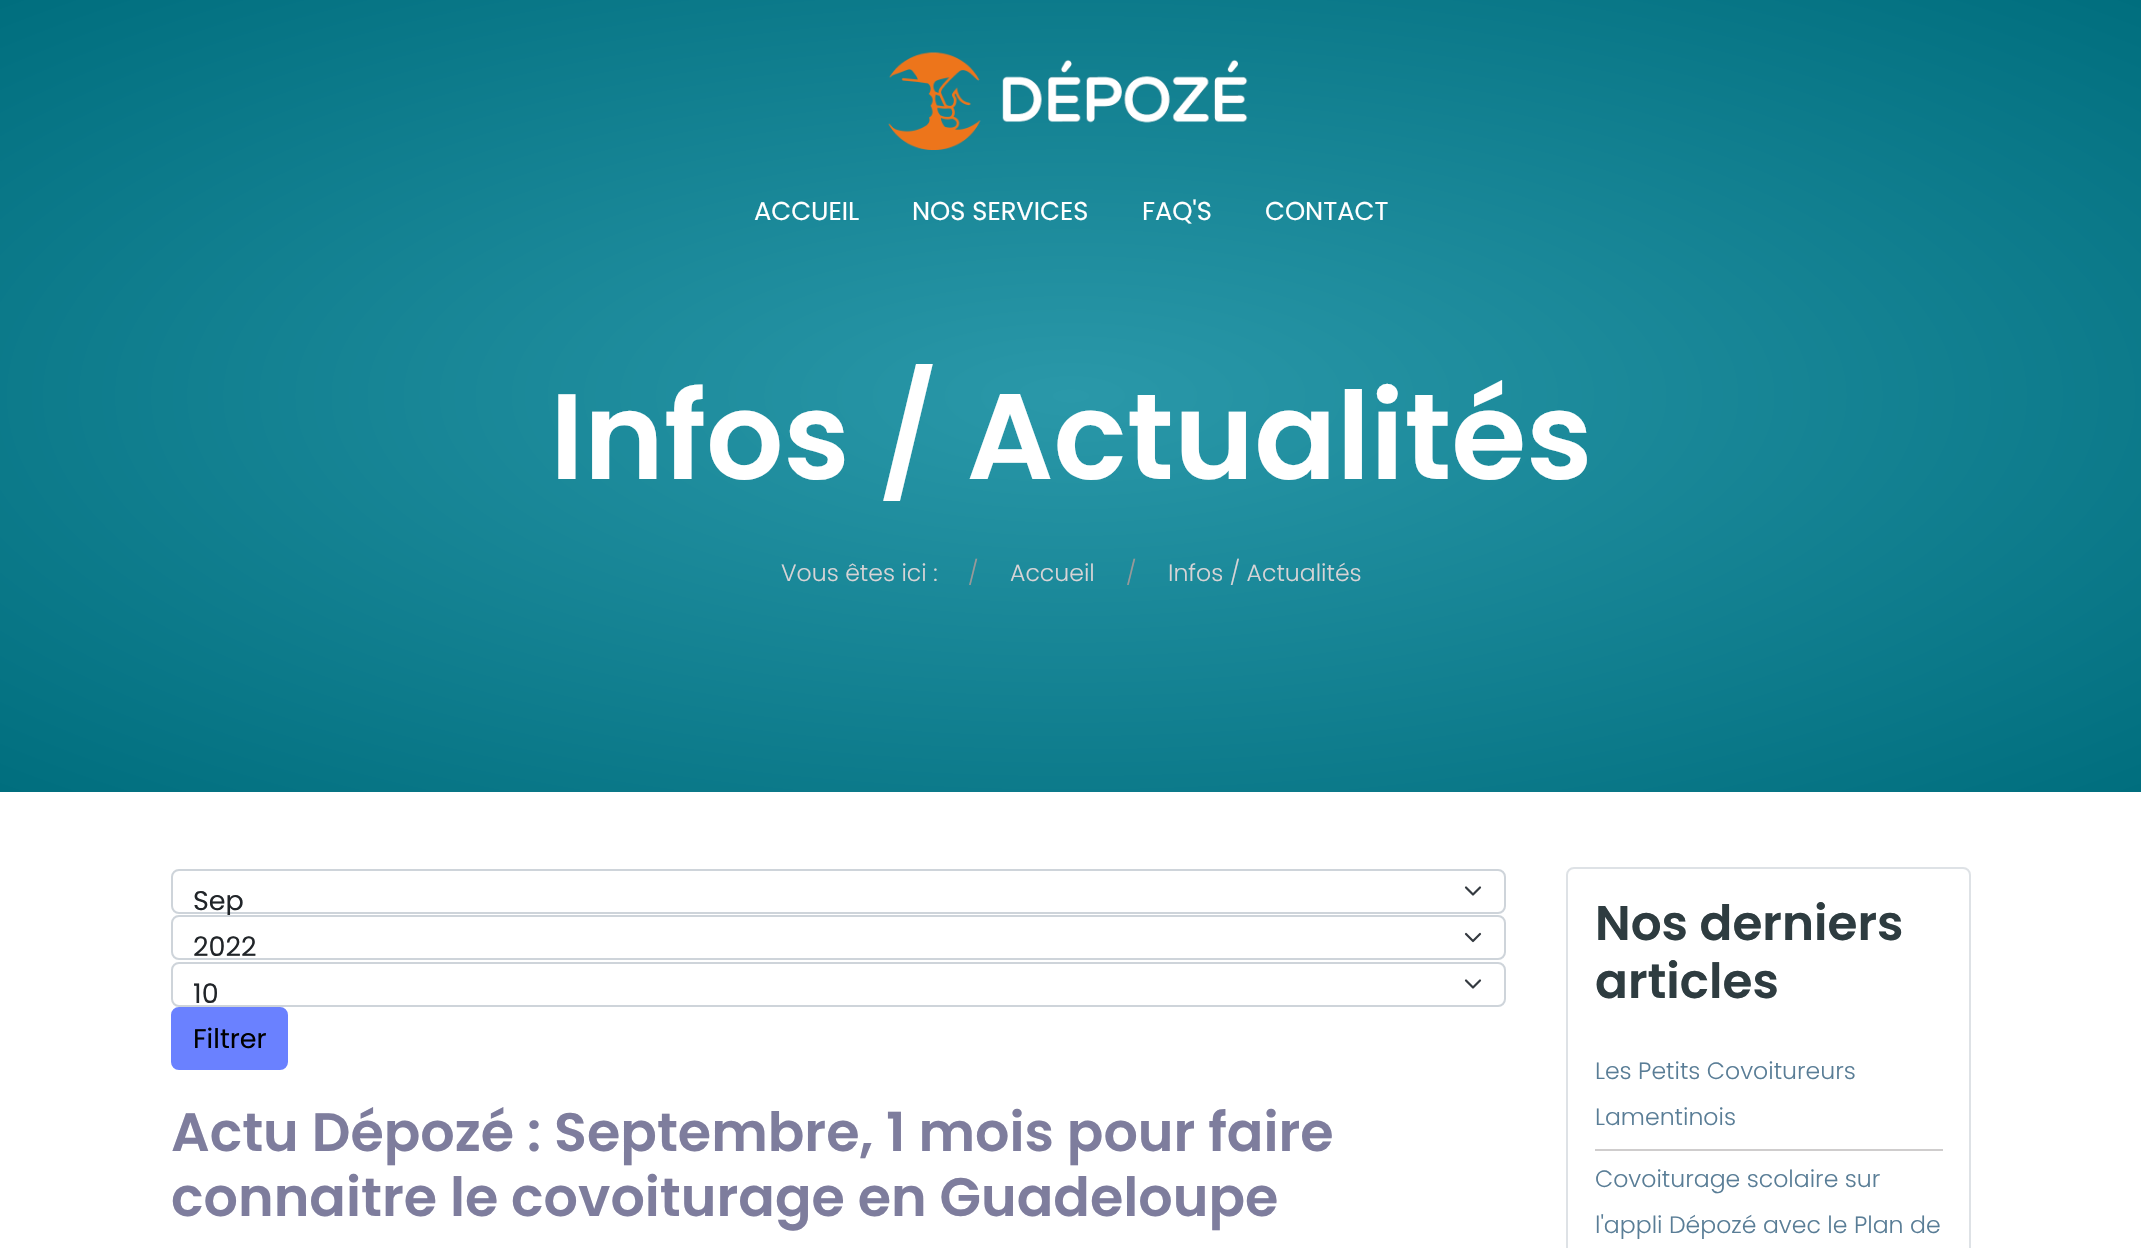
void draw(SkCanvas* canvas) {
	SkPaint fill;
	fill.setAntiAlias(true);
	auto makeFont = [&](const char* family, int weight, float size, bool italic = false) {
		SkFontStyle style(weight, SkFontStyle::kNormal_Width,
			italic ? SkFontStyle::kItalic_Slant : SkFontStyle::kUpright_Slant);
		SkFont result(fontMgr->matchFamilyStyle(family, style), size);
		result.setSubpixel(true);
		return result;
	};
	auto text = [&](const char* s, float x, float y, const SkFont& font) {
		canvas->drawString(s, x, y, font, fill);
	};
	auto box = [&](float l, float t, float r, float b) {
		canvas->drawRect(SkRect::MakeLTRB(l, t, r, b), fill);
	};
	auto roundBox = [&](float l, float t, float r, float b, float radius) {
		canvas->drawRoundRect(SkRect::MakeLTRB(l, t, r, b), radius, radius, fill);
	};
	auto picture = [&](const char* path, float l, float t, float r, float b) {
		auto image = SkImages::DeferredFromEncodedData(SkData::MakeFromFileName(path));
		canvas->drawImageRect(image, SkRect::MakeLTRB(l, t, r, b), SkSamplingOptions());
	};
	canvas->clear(0xFFFFFFFF);
	{
		const SkColor colors[] = {0xFF2A98A9, 0xFF006E7E};
		const float stops[] = {0, 1};
		SkMatrix m = SkMatrix::Translate(1071, 396).preScale(1515, 560);
		fill.setShader(SkGradientShader::MakeRadial({0, 0}, 1, colors, stops, 2, SkTileMode::kClamp, 0, &m));
		fill.setAlpha(255);
	}
	box(0, 0, 2141, 792);
	picture("image0.png", 888, 52, 1248, 150);
	fill.setStyle(SkPaint::kStroke_Style);
	fill.setStrokeWidth(2.2f);
	fill.setStrokeCap(SkPaint::kRound_Cap);
	fill.setStrokeJoin(SkPaint::kRound_Join);
	fill.setShader(nullptr);
	fill.setColor(0xFF343A40);
	canvas->drawPath(SkPathBuilder().moveTo(1466, 887.5f).lineTo(1473, 894.5f).lineTo(1480, 887.5f).detach(), fill);
	fill.setStrokeWidth(2);
	fill.setStrokeCap(SkPaint::kButt_Cap);
	fill.setStrokeJoin(SkPaint::kMiter_Join);
	fill.setColor(0xFFCED4DA);
	canvas->drawRoundRect(SkRect::MakeLTRB(172, 870, 1505, 913), 7, 7, fill);
	fill.setStrokeWidth(2.2f);
	fill.setStrokeCap(SkPaint::kRound_Cap);
	fill.setStrokeJoin(SkPaint::kRound_Join);
	fill.setColor(0xFF343A40);
	canvas->drawPath(SkPathBuilder().moveTo(1466, 980.5f).lineTo(1473, 987.5f).lineTo(1480, 980.5f).detach(), fill);
	fill.setStrokeWidth(2);
	fill.setStrokeCap(SkPaint::kButt_Cap);
	fill.setStrokeJoin(SkPaint::kMiter_Join);
	fill.setColor(0xFFCED4DA);
	canvas->drawRoundRect(SkRect::MakeLTRB(172, 963, 1505, 1006), 7, 7, fill);
	fill.setStyle(SkPaint::kFill_Style);
	fill.setColor(0xFF6A81FF);
	canvas->drawRoundRect(SkRect::MakeLTRB(172, 1008, 287, 1069), 7, 7, fill);
	fill.setStyle(SkPaint::kStroke_Style);
	canvas->drawRoundRect(SkRect::MakeLTRB(172, 1008, 287, 1069), 7, 7, fill);
	fill.setColor(0xFFDEE2E6);
	canvas->drawRoundRect(SkRect::MakeLTRB(1567, 868, 1970, 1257), 7, 7, fill);
	fill.setStyle(SkPaint::kFill_Style);
	fill.setColor(0xFFCFCDCD);
	box(1595, 1149, 1943, 1151);
	auto font1 = makeFont("Poppins", 400, 25.75f);
	fill.setColor(0xFFFFFFFF);
	text("ACCUEIL", 754, 220, font1);
	text("NOS SERVICES", 912, 220, font1);
	text("FAQ'S", 1142, 220, font1);
	text("CONTACT", 1265, 220, font1);
	auto font2 = makeFont("Poppins", 600, 121.5f);
	text("Infos / Actualités", 550, 479, font2);
	auto font3 = makeFont("Poppins", 300, 23.6f);
	fill.setColor(0xFFD8D4D6);
	text("Vous êtes ici :", 781, 581, font3);
	fill.setColor(0xFF999999);
	text("/", 968, 581, font3);
	fill.setColor(0xFFD8D4D6);
	text("Accueil", 1010, 581, font3);
	fill.setColor(0xFF999999);
	text("/", 1126, 581, font3);
	fill.setColor(0xFFD8D4D6);
	text("Infos / Actualités", 1168, 581, font3);
	auto font4 = makeFont("Poppins", 400, 27);
	fill.setColor(0xFF212529);
	text("Sep", 193, 910, font4);
	fill.setColor(0xFFFFFFFF);
	roundBox(171, 915, 1506, 960, 8);
	fill.setStyle(SkPaint::kStroke_Style);
	fill.setStrokeWidth(2.2f);
	fill.setStrokeCap(SkPaint::kRound_Cap);
	fill.setStrokeJoin(SkPaint::kRound_Join);
	fill.setColor(0xFF343A40);
	canvas->drawPath(SkPathBuilder().moveTo(1466, 934).lineTo(1473, 941).lineTo(1480, 934).detach(), fill);
	fill.setStrokeWidth(2);
	fill.setStrokeCap(SkPaint::kButt_Cap);
	fill.setStrokeJoin(SkPaint::kMiter_Join);
	fill.setColor(0xFFCED4DA);
	canvas->drawRoundRect(SkRect::MakeLTRB(172, 916, 1505, 959), 7, 7, fill);
	fill.setStyle(SkPaint::kFill_Style);
	fill.setColor(0xFF212529);
	text("2022", 193, 956, font4);
	canvas->save();
	canvas->clipRect(SkRect::MakeLTRB(194, 974, 1445, 1014));
	text("10", 193, 1003, font4);
	canvas->restore();
	fill.setColor(0xFF000000);
	text("Filtrer", 193, 1048, font4);
	auto font5 = makeFont("Poppins", 600, 54);
	fill.setColor(0xFF7E7D9D);
	text("Actu Dépozé : Septembre, 1 mois pour faire", 171, 1151, font5);
	text("connaitre le covoiturage en Guadeloupe", 171, 1216, font5);
	auto font6 = makeFont("Poppins", 600, 48.5f);
	fill.setColor(0xFF2E3C40);
	text("Nos derniers", 1595, 940, font6);
	text("articles", 1595, 998, font6);
	fill.setColor(0xFF597D96);
	text("Les Petits Covoitureurs", 1595, 1079, font3);
	text("Lamentinois", 1595, 1125, font3);
	text("Covoiturage scolaire sur", 1595, 1187, font3);
	text("l'appli Dépozé avec le Plan de", 1595, 1233, font3);
}
